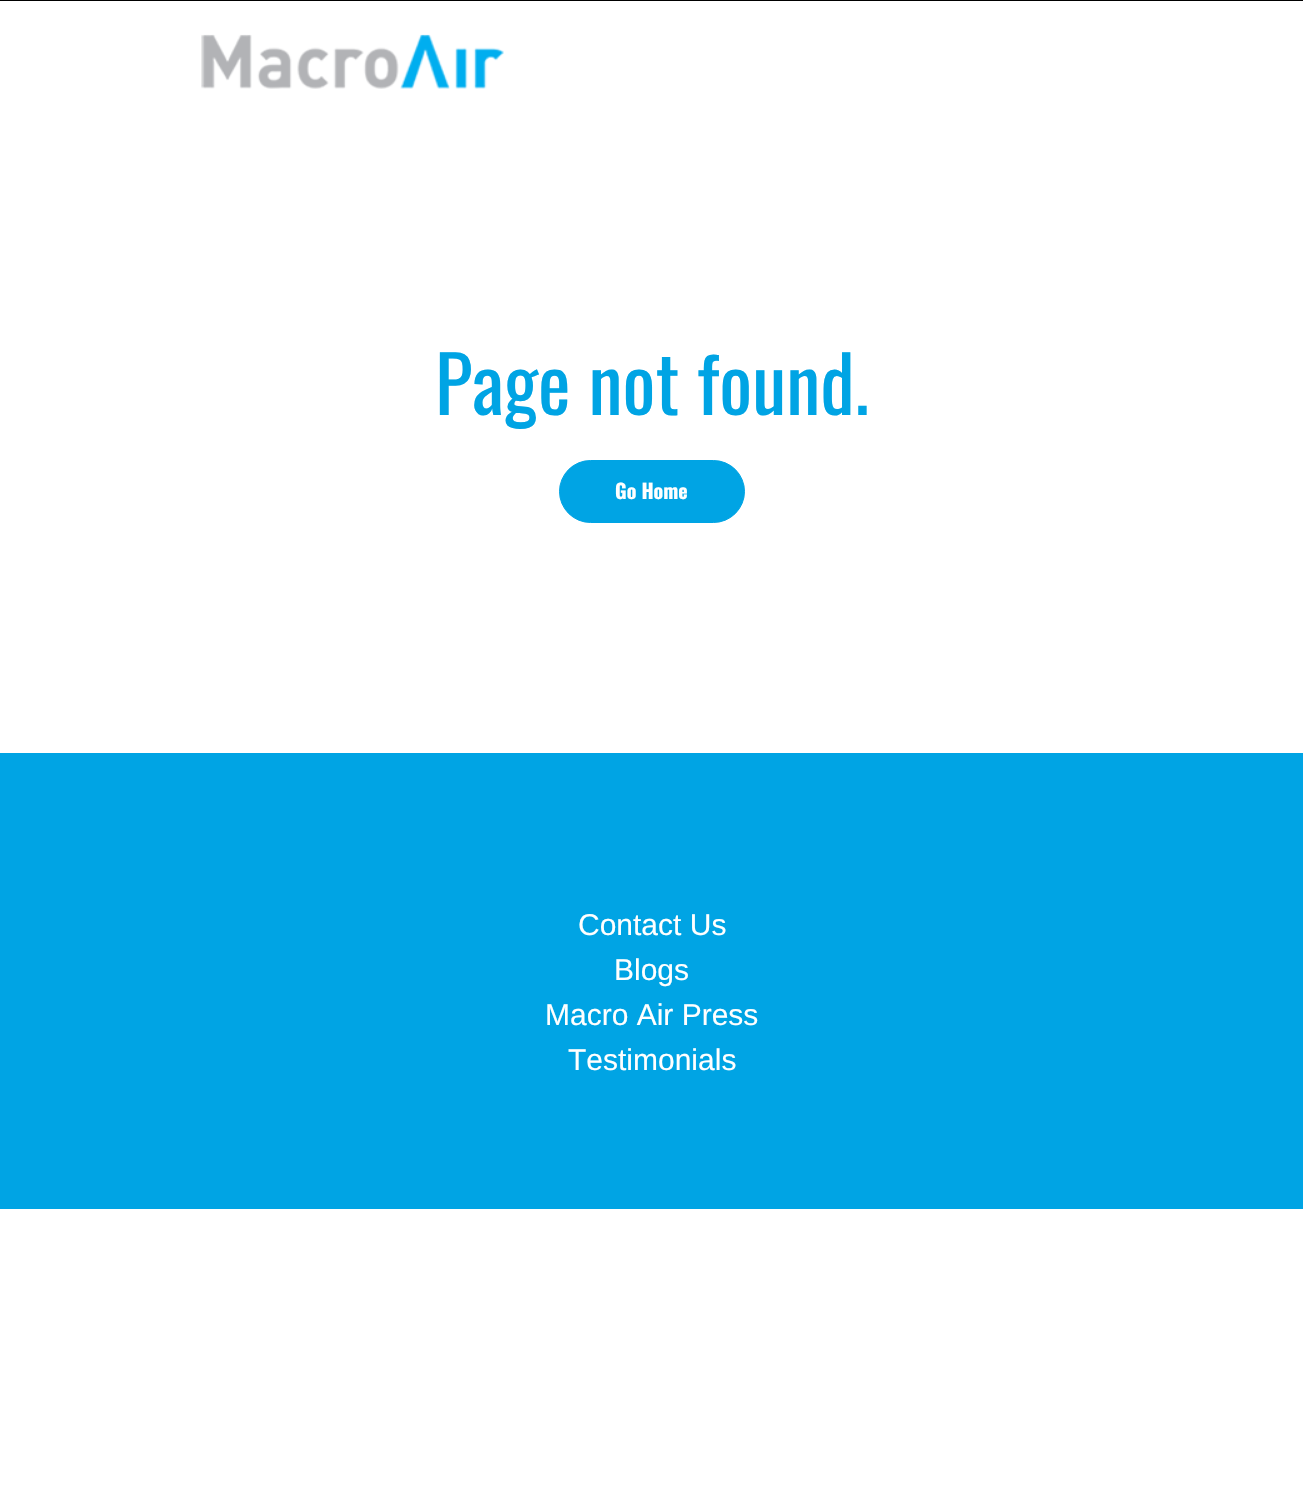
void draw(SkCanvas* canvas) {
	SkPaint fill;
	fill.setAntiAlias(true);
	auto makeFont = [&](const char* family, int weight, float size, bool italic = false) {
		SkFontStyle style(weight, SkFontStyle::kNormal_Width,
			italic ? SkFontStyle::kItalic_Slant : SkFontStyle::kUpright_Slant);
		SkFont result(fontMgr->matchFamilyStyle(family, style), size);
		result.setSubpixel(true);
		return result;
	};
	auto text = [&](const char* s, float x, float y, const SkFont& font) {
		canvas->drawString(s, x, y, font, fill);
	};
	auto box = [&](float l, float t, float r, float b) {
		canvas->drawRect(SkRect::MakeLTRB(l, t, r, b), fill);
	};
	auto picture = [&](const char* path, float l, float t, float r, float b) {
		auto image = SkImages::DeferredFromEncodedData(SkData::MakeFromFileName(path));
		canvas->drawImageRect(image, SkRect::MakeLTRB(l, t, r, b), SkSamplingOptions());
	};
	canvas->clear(0xFFFFFFFF);
	fill.setColor(0xFF000000);
	box(0, 0, 1303, 1);
	picture("image0.png", 201, 34, 504, 89);
	fill.setColor(0xFF00A4E4);
	canvas->drawRoundRect(SkRect::MakeLTRB(559.5f, 460.5f, 744.5f, 522.5f), 31, 31, fill);
	fill.setStyle(SkPaint::kStroke_Style);
	fill.setStrokeWidth(1);
	canvas->drawRoundRect(SkRect::MakeLTRB(559.5f, 460.5f, 744.5f, 522.5f), 31, 31, fill);
	fill.setStyle(SkPaint::kFill_Style);
	box(0, 753, 1303, 1209);
	auto font1 = makeFont("Oswald", 400, 77.5f);
	text("Page not found.", 435, 415, font1);
	auto font2 = makeFont("Oswald", 700, 20);
	fill.setColor(0xFFFFFFFF);
	text("Go Home", 615, 499, font2);
	auto font3 = makeFont("Liberation Sans", 400, 30);
	text("Contact Us", 578, 935, font3);
	text("Blogs", 614, 980, font3);
	text("Macro Air Press", 545, 1025, font3);
	text("Testimonials", 568, 1070, font3);
}
